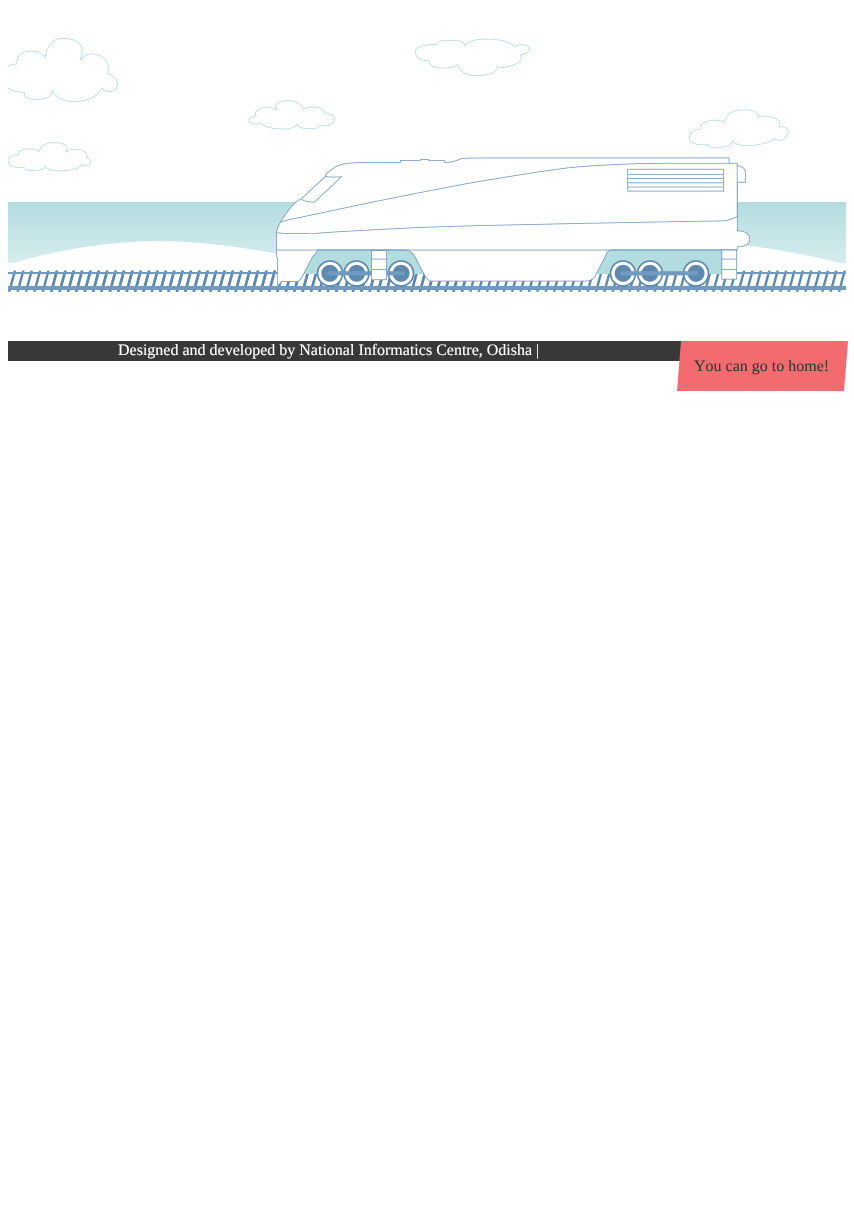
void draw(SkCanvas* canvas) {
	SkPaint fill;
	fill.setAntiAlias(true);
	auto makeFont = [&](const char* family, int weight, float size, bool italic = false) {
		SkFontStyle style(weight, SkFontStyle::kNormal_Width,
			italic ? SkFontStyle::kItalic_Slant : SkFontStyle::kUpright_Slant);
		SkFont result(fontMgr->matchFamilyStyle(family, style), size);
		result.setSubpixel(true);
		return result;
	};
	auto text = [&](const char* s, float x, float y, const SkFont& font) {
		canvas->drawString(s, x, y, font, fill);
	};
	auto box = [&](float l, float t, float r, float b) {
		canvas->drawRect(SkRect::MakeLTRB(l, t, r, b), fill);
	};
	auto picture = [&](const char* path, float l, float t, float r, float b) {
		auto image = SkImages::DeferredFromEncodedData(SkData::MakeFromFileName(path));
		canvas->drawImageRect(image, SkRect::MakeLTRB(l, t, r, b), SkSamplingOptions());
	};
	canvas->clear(0xFFFFFFFF);
	picture("image0.png", 8, 38, 846, 292);
	fill.setColor(0xFF383838);
	box(8, 341, 681, 361);
	fill.setColor(0xFFF36A6F);
	canvas->drawPath(SkPathBuilder().moveTo(681, 341).lineTo(848, 341).lineTo(844, 391).lineTo(677, 391).close().detach(), fill);
	auto font1 = makeFont("Liberation Serif", 400, 16);
	fill.setColor(0xFFFFFFFF);
	text("Designed and developed by National Informatics Centre, Odisha |", 118, 355, font1);
	fill.setColor(0xFF383838);
	text("You can go to home!", 694, 371, font1);
}
